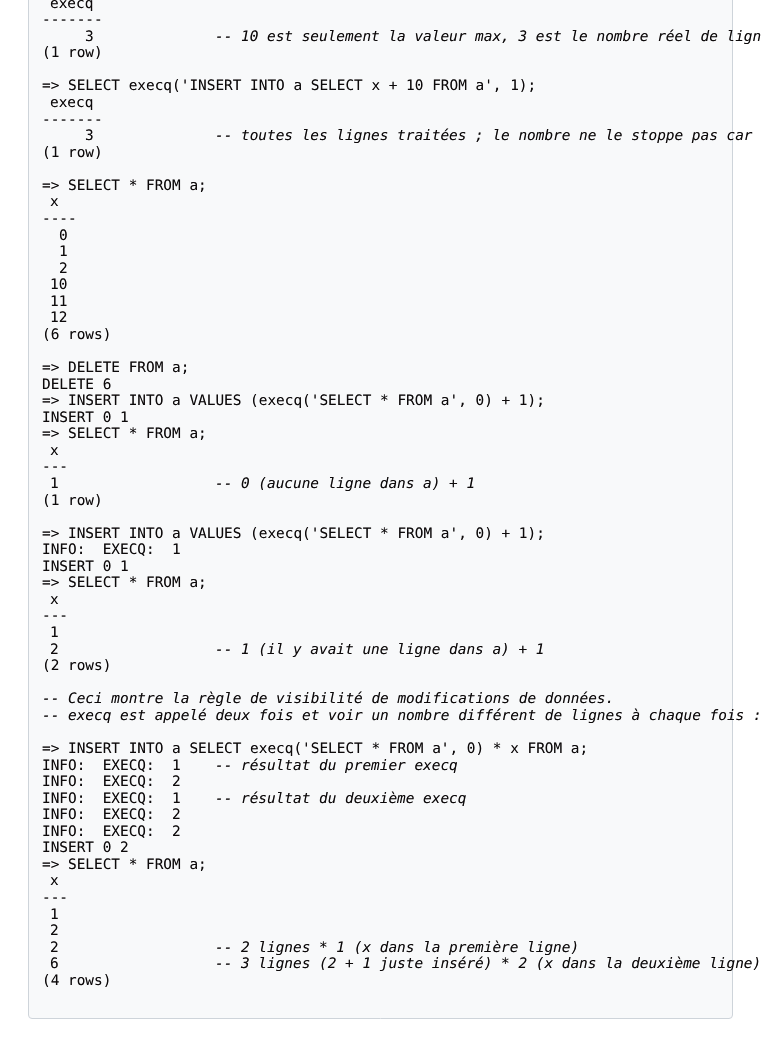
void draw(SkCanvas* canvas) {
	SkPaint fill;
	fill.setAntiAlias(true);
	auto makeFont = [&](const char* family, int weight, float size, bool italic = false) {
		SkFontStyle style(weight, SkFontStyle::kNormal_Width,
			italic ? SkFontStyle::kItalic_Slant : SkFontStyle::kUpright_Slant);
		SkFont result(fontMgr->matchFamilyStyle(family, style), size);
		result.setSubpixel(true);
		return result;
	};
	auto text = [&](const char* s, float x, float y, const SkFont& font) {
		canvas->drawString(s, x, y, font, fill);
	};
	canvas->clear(0xFFFFFFFF);
	fill.setColor(0xFFF8F9FA);
	canvas->drawRoundRect(SkRect::MakeLTRB(28.5f, -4.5f, 732.5f, 1018.5f), 3.5f, 3.5f, fill);
	fill.setStyle(SkPaint::kStroke_Style);
	fill.setStrokeWidth(1);
	fill.setColor(0xFFCED4DA);
	canvas->drawRoundRect(SkRect::MakeLTRB(28.5f, -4.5f, 732.5f, 1018.5f), 3.5f, 3.5f, fill);
	auto font1 = makeFont("DejaVu Sans Mono", 400, 14.4f);
	fill.setStyle(SkPaint::kFill_Style);
	fill.setColor(0xFF0D0A0B);
	text("execq", 50, 8, font1);
	text("-------", 42, 24, font1);
	text("3", 85, 41, font1);
	auto font2 = makeFont("DejaVu Sans Mono", 400, 14.4f, true);
	text("-- 10 est seulement la valeur max, 3 est le nombre réel de lign", 215, 41, font2);
	text("(1 row)", 42, 57, font1);
	text("=> SELECT execq('INSERT INTO a SELECT x + 10 FROM a', 1);", 42, 90, font1);
	text("execq", 50, 107, font1);
	text("-------", 42, 124, font1);
	text("3", 85, 140, font1);
	text("-- toutes les lignes traitées ; le nombre ne le stoppe pas car", 215, 140, font2);
	text("(1 row)", 42, 157, font1);
	text("=> SELECT * FROM a;", 42, 190, font1);
	text("x", 50, 206, font1);
	text("----", 42, 223, font1);
	text("0", 59, 240, font1);
	text("1", 59, 256, font1);
	text("2", 59, 273, font1);
	text("10", 50, 289, font1);
	text("11", 50, 306, font1);
	text("12", 50, 322, font1);
	text("(6 rows)", 42, 339, font1);
	text("=> DELETE FROM a;", 42, 372, font1);
	text("DELETE 6", 42, 389, font1);
	text("=> INSERT INTO a VALUES (execq('SELECT * FROM a', 0) + 1);", 42, 405, font1);
	text("INSERT 0 1", 42, 422, font1);
	text("=> SELECT * FROM a;", 42, 438, font1);
	text("x", 50, 455, font1);
	text("---", 42, 471, font1);
	text("1", 50, 488, font1);
	text("-- 0 (aucune ligne dans a) + 1", 215, 488, font2);
	text("(1 row)", 42, 505, font1);
	text("=> INSERT INTO a VALUES (execq('SELECT * FROM a', 0) + 1);", 42, 538, font1);
	text("INFO:  EXECQ:  1", 42, 554, font1);
	text("INSERT 0 1", 42, 571, font1);
	text("=> SELECT * FROM a;", 42, 587, font1);
	text("x", 50, 604, font1);
	text("---", 42, 620, font1);
	text("1", 50, 637, font1);
	text("2", 50, 654, font1);
	text("-- 1 (il y avait une ligne dans a) + 1", 215, 654, font2);
	text("(2 rows)", 42, 670, font1);
	text("-- Ceci montre la règle de visibilité de modifications de données.", 42, 703, font2);
	text("-- execq est appelé deux fois et voir un nombre différent de lignes à chaque fois :", 42, 720, font2);
	text("=> INSERT INTO a SELECT execq('SELECT * FROM a', 0) * x FROM a;", 42, 753, font1);
	text("INFO:  EXECQ:  1", 42, 770, font1);
	text("-- résultat du premier execq", 215, 770, font2);
	text("INFO:  EXECQ:  2", 42, 786, font1);
	text("INFO:  EXECQ:  1", 42, 803, font1);
	text("-- résultat du deuxième execq", 215, 803, font2);
	text("INFO:  EXECQ:  2", 42, 819, font1);
	text("INFO:  EXECQ:  2", 42, 836, font1);
	text("INSERT 0 2", 42, 852, font1);
	text("=> SELECT * FROM a;", 42, 869, font1);
	text("x", 50, 885, font1);
	text("---", 42, 902, font1);
	text("1", 50, 919, font1);
	text("2", 50, 935, font1);
	text("2", 50, 952, font1);
	text("-- 2 lignes * 1 (x dans la première ligne)", 215, 952, font2);
	text("6", 50, 968, font1);
	text("-- 3 lignes (2 + 1 juste inséré) * 2 (x dans la deuxième ligne)", 215, 968, font2);
	text("(4 rows)", 42, 985, font1);
}
